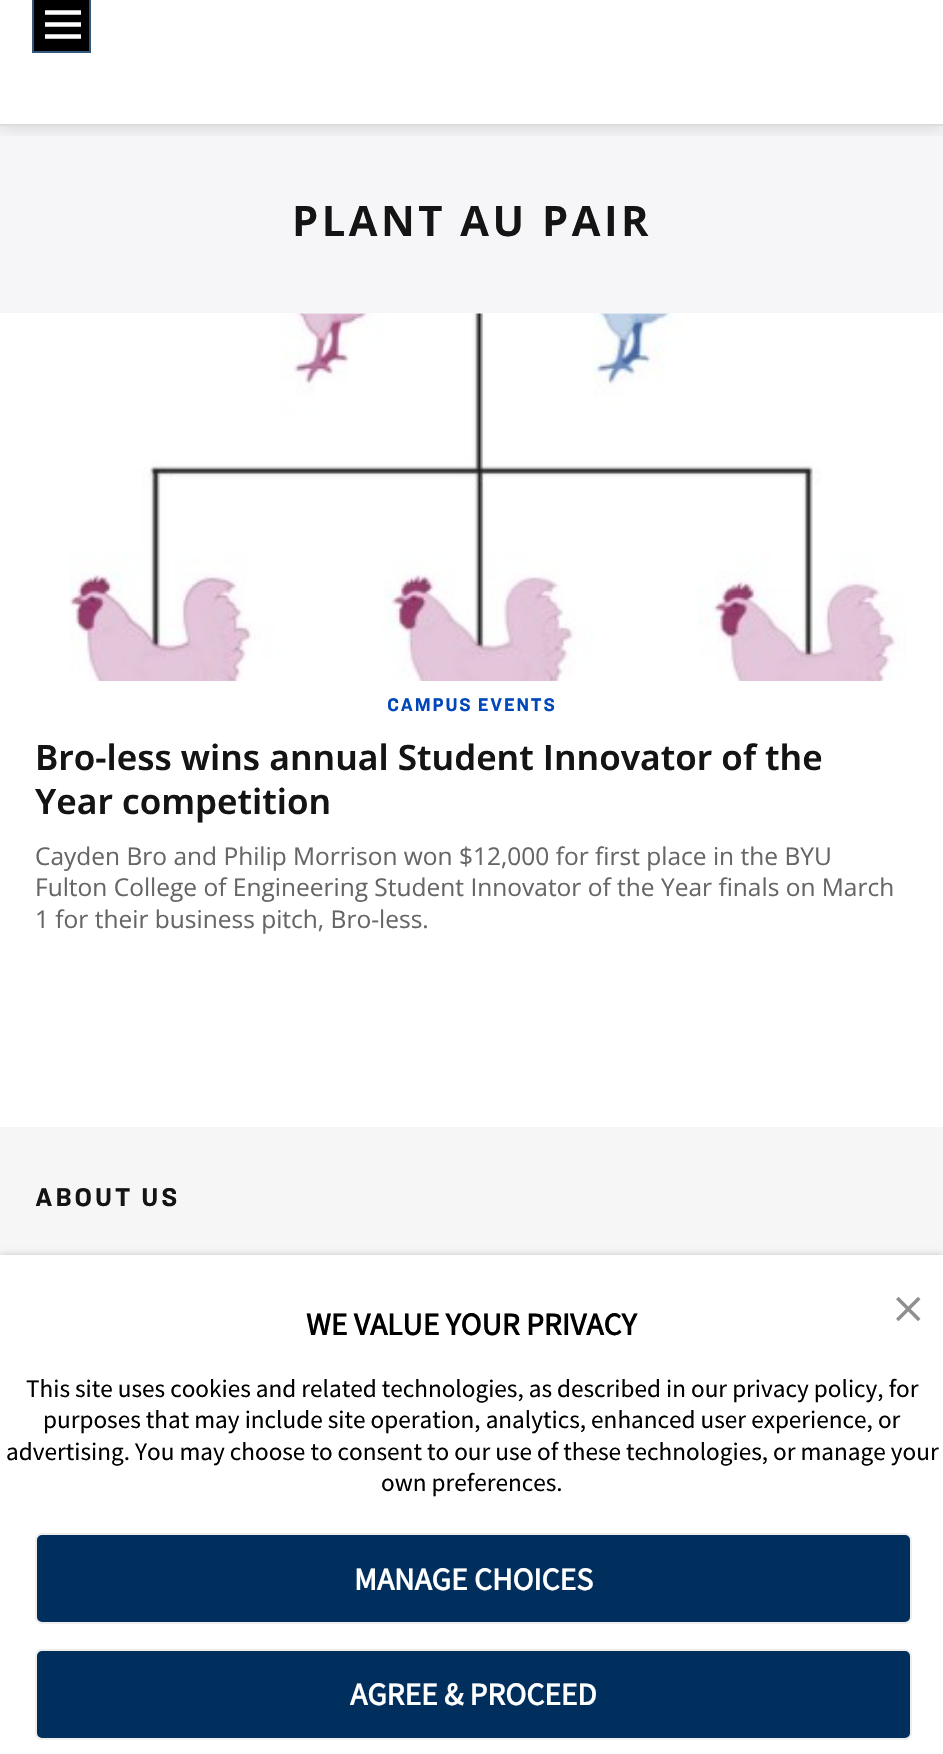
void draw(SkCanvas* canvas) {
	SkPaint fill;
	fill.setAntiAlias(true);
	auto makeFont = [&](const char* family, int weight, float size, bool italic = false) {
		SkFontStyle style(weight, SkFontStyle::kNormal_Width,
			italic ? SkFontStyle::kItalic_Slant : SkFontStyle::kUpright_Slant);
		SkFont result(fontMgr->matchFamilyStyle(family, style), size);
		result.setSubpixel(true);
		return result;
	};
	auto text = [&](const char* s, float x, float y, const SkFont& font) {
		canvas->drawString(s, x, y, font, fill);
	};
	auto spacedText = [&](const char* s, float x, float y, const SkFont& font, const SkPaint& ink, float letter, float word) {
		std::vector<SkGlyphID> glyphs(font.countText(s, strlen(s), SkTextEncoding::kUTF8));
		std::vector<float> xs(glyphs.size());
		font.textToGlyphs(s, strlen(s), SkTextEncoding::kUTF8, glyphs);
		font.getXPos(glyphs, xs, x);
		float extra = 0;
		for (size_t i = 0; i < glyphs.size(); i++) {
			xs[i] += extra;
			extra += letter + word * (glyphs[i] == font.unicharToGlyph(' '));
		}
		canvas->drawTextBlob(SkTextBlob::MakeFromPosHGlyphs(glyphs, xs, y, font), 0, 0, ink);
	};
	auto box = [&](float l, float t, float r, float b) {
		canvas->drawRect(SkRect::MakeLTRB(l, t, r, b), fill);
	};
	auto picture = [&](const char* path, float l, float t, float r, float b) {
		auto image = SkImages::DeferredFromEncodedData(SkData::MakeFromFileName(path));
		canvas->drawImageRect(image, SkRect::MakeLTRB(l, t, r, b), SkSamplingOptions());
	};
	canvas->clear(0xFFFFFFFF);
	fill.setColor(0xFFF6F6F8);
	box(0, 126, 943, 313);
	canvas->save();
	canvas->clipRect(SkRect::MakeLTRB(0, 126, 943, 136));
	fill.setColor(0x29000000);
	fill.setMaskFilter(SkMaskFilter::MakeBlur(kNormal_SkBlurStyle, 9));
	canvas->drawRect(SkRect::MakeLTRB(0, -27, 943, 126), fill);
	fill.setMaskFilter(nullptr);
	canvas->restore();
	fill.setColor(0xFFDDDDDD);
	box(0, 124, 943, 126);
	fill.setColor(0xFF000000);
	canvas->drawRect(SkRect::MakeLTRB(33, -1, 90, 52), fill);
	fill.setStyle(SkPaint::kStroke_Style);
	fill.setStrokeWidth(2);
	fill.setColor(0xFF33587D);
	canvas->drawRect(SkRect::MakeLTRB(33, -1, 90, 52), fill);
	fill.setStrokeWidth(4.5f);
	fill.setColor(0xFFFFFFFF);
	canvas->drawPath(SkPathBuilder().moveTo(45, 12.5f).lineTo(81, 12.5f).moveTo(45, 24.5f).lineTo(81, 24.5f).moveTo(45, 36.5f).lineTo(81, 36.5f).detach(), fill);
	picture("image0.png", 69, 313, 907, 681);
	fill.setStyle(SkPaint::kFill_Style);
	fill.setColor(0xFFF6F6F6);
	box(0, 1127, 943, 1255);
	fill.setColor(0x33000000);
	fill.setMaskFilter(SkMaskFilter::MakeBlur(kNormal_SkBlurStyle, 3.5f));
	canvas->drawRect(SkRect::MakeLTRB(0, 1255, 943, 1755), fill);
	fill.setMaskFilter(nullptr);
	fill.setColor(0xFFFFFFFF);
	box(0, 1255, 943, 1754);
	picture("image1.png", 896, 1297, 921, 1321);
	fill.setColor(0xFF002E5D);
	canvas->drawRoundRect(SkRect::MakeLTRB(36, 1534, 911, 1623), 6, 6, fill);
	fill.setStyle(SkPaint::kStroke_Style);
	fill.setStrokeWidth(2);
	fill.setColor(0xFFEEEEEE);
	canvas->drawRoundRect(SkRect::MakeLTRB(36, 1534, 911, 1623), 6, 6, fill);
	fill.setStyle(SkPaint::kFill_Style);
	fill.setColor(0xFF002E5D);
	canvas->drawRoundRect(SkRect::MakeLTRB(36, 1650, 911, 1739), 6, 6, fill);
	fill.setStyle(SkPaint::kStroke_Style);
	fill.setColor(0xFFEEEEEE);
	canvas->drawRoundRect(SkRect::MakeLTRB(36, 1650, 911, 1739), 6, 6, fill);
	auto font1 = makeFont("Open Sans", 700, 42);
	fill.setStyle(SkPaint::kFill_Style);
	fill.setColor(0xFF141414);
	spacedText("PLANT AU PAIR", 292, 236, font1, fill, 3.5f, 0);
	auto font2 = makeFont("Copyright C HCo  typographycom", 400, 17.5f);
	fill.setColor(0xFF0047BA);
	spacedText("CAMPUS EVENTS", 387, 711, font2, fill, 1.4f, 0);
	auto font3 = makeFont("Open Sans", 600, 35);
	fill.setColor(0xFF141414);
	text("Bro-less wins annual Student Innovator of the", 35, 770, font3);
	text("Year competition", 35, 814, font3);
	auto font4 = makeFont("Open Sans", 400, 24.5f);
	fill.setColor(0xFF666666);
	text("Cayden Bro and Philip Morrison won $12,000 for first place in the BYU", 35, 865, font4);
	text("Fulton College of Engineering Student Innovator of the Year finals on March", 35, 896, font4);
	text("1 for their business pitch, Bro-less.", 35, 928, font4);
	auto font5 = makeFont("Copyright C HCo  typographycom", 400, 24.5f);
	fill.setColor(0xFF141414);
	spacedText("ABOUT US", 35, 1206, font5, fill, 2.5f, 0);
	auto font6 = makeFont("Source Sans Pro", 700, 31.5f);
	fill.setColor(0xFF000000);
	text("WE VALUE YOUR PRIVACY", 306, 1335, font6);
	auto font7 = makeFont("Source Sans Pro", 400, 25.2f);
	text("This site uses cookies and related technologies, as described in our privacy policy, for", 26, 1397, font7);
	text("purposes that may include site operation, analytics, enhanced user experience, or", 43, 1428, font7);
	text("advertising. You may choose to consent to our use of these technologies, or manage your", 6, 1460, font7);
	text("own preferences.", 381, 1491, font7);
	fill.setColor(0xFFFFFFFF);
	text("MANAGE CHOICES", 354, 1590, font6);
	text("AGREE & PROCEED", 350, 1705, font6);
}
